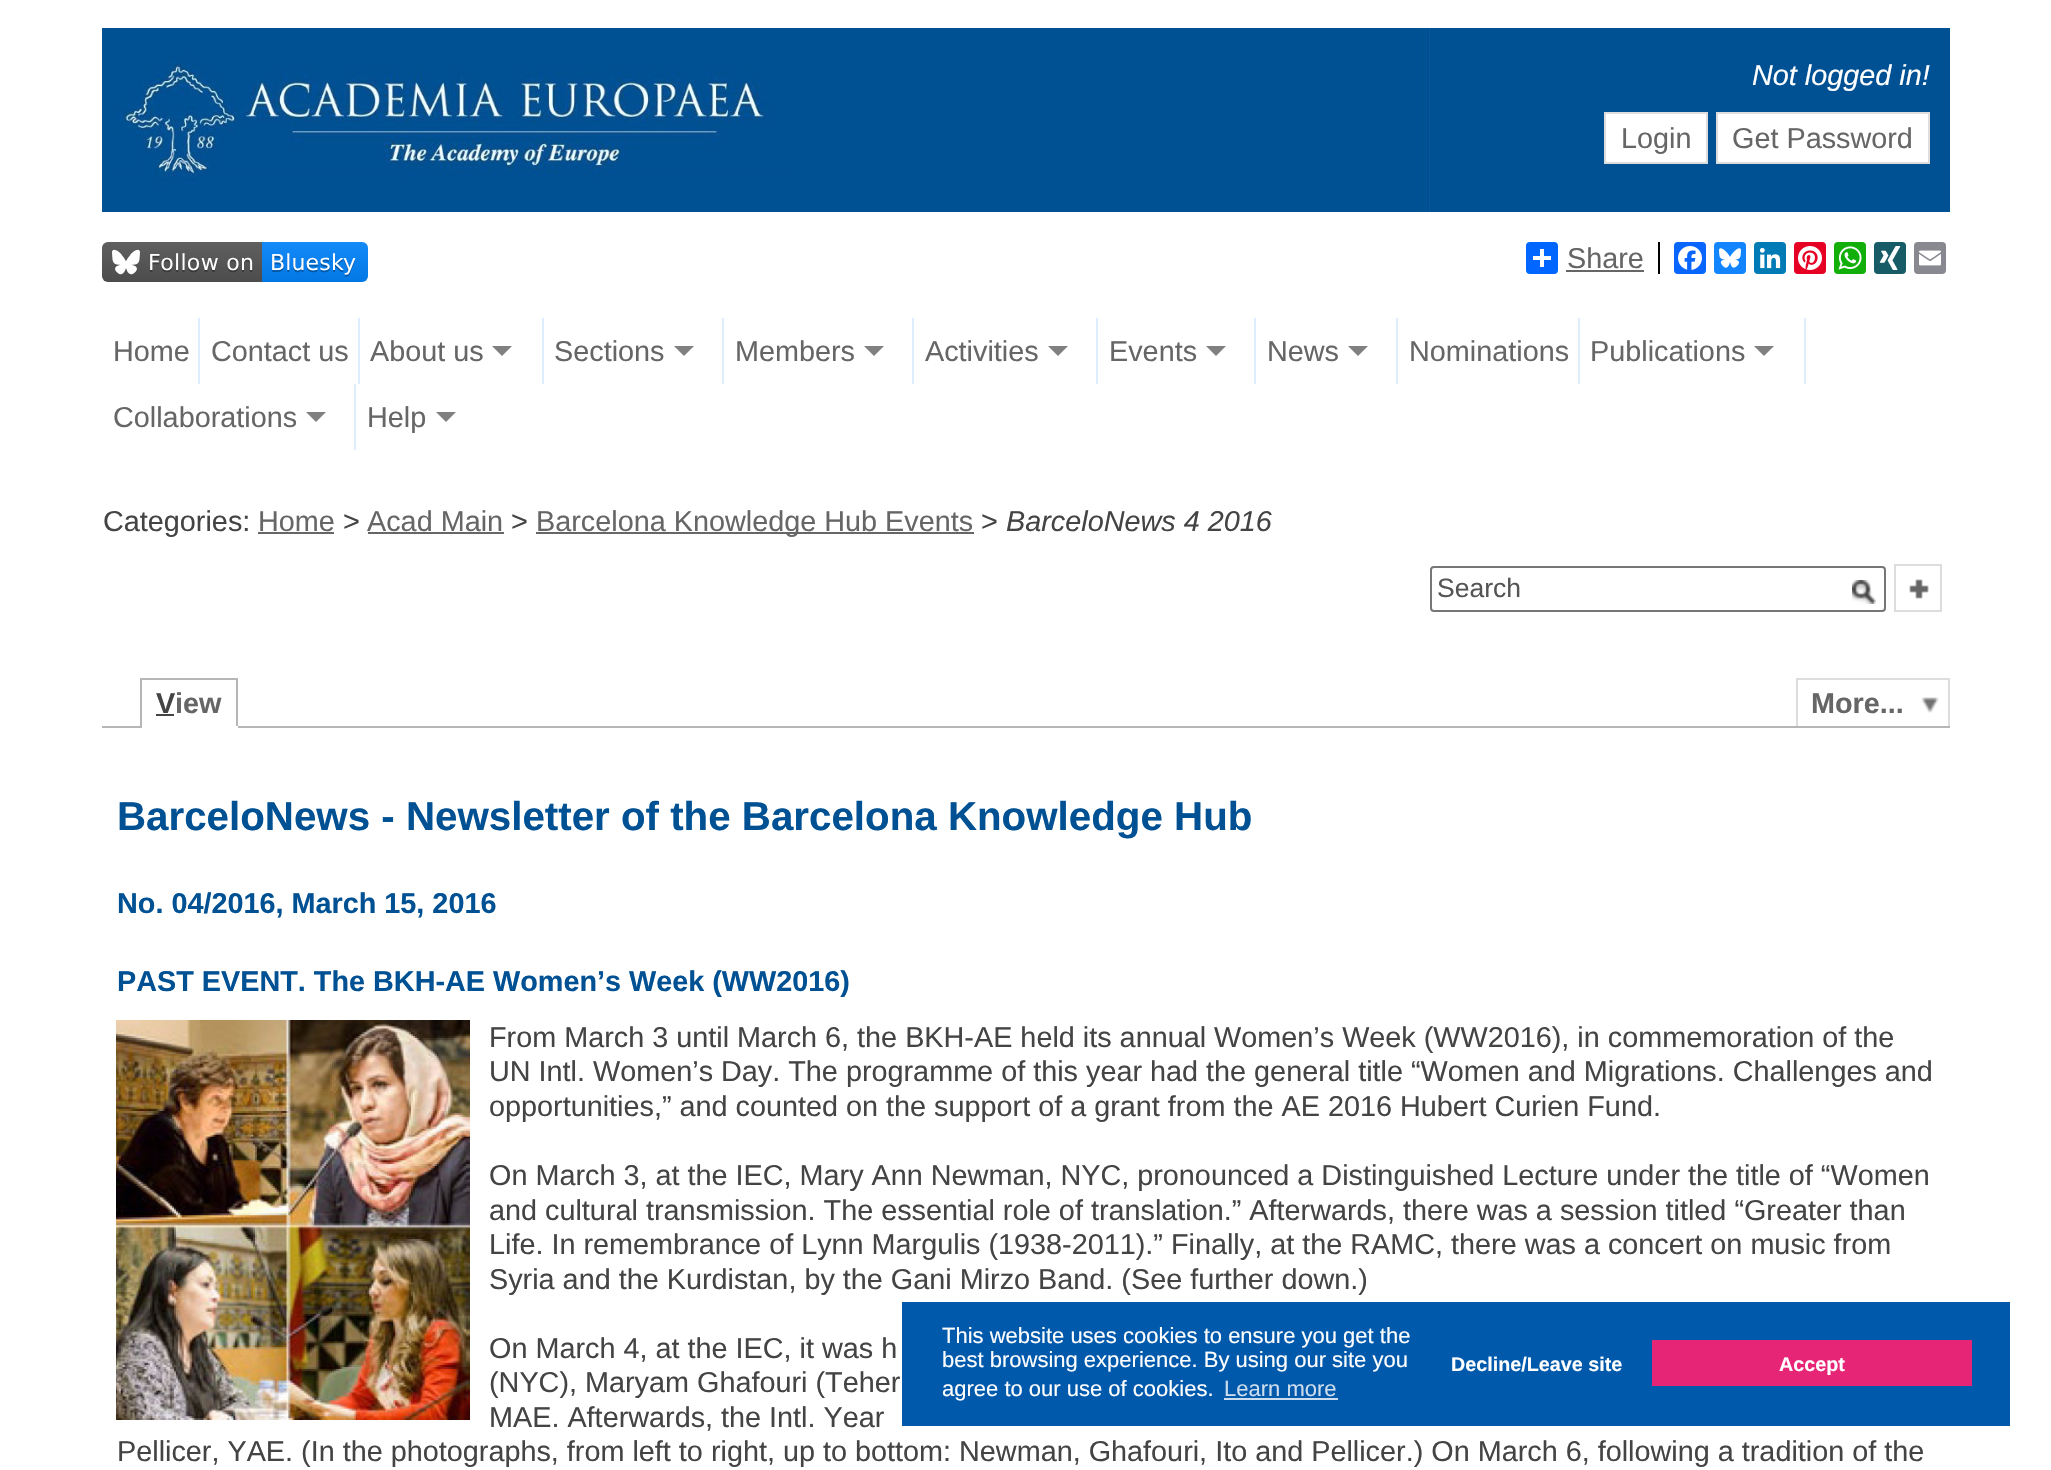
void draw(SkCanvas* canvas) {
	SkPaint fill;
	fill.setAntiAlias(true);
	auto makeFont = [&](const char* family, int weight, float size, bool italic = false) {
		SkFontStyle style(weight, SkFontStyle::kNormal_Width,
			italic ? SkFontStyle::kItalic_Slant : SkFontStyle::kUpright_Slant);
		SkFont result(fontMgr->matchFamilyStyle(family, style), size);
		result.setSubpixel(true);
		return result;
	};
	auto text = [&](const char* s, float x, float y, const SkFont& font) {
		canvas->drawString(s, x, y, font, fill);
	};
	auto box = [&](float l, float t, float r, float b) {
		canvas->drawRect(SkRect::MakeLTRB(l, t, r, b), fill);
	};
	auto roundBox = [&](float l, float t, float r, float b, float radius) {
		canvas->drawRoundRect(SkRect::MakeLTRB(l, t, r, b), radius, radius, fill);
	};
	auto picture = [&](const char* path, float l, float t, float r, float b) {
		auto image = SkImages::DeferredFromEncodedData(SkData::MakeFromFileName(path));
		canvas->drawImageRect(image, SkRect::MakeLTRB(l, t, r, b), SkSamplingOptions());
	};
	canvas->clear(0xFFFFFFFF);
	fill.setColor(0xFF005193);
	box(102, 28, 1950, 212);
	picture("image0.png", 118, 28, 1430, 212);
	fill.setColor(0xFFFFFFFF);
	canvas->drawRect(SkRect::MakeLTRB(1605, 113, 1707, 163), fill);
	fill.setStyle(SkPaint::kStroke_Style);
	fill.setStrokeWidth(2);
	fill.setColor(0xFFDDDDDD);
	canvas->drawRect(SkRect::MakeLTRB(1605, 113, 1707, 163), fill);
	fill.setStyle(SkPaint::kFill_Style);
	fill.setColor(0xFFFFFFFF);
	canvas->drawRect(SkRect::MakeLTRB(1717, 113, 1929, 163), fill);
	fill.setStyle(SkPaint::kStroke_Style);
	fill.setColor(0xFFDDDDDD);
	canvas->drawRect(SkRect::MakeLTRB(1717, 113, 1929, 163), fill);
	picture("image1.png", 102, 242, 368, 282);
	fill.setStyle(SkPaint::kFill_Style);
	fill.setColor(0xFF0166FF);
	roundBox(1526, 242, 1558, 274, 4);
	fill.setColor(0xFFFFFFFF);
	box(1540, 249, 1544, 267);
	box(1533, 256, 1551, 260);
	fill.setColor(0xFF666666);
	box(1566, 270, 1644, 272);
	fill.setColor(0xFF000000);
	box(1658, 242, 1660, 274);
	fill.setColor(0xFF0866FF);
	roundBox(1674, 242, 1706, 274, 4);
	picture("image2.png", 1678, 246, 1702, 270);
	fill.setColor(0xFF1285FE);
	roundBox(1714, 242, 1746, 274, 4);
	picture("image3.png", 1719, 248, 1741, 268);
	fill.setColor(0xFF007BB5);
	roundBox(1754, 242, 1786, 274, 4);
	picture("image4.png", 1759, 247, 1781, 269);
	fill.setColor(0xFFE60023);
	roundBox(1794, 242, 1826, 274, 4);
	picture("image5.png", 1798, 246, 1822, 270);
	fill.setColor(0xFF12AF0A);
	roundBox(1834, 242, 1866, 274, 4);
	picture("image6.png", 1838, 246, 1862, 270);
	fill.setColor(0xFF165B66);
	roundBox(1874, 242, 1906, 274, 4);
	picture("image7.png", 1879, 246, 1901, 270);
	fill.setColor(0xFF888990);
	roundBox(1914, 242, 1946, 274, 4);
	picture("image8.png", 1919, 250, 1941, 266);
	fill.setColor(0xFFDFEEFF);
	box(198, 318, 200, 384);
	box(358, 318, 360, 384);
	box(542, 318, 544, 384);
	fill.setColor(0xFF808080);
	canvas->drawPath(SkPathBuilder().moveTo(492, 346).lineTo(512, 346).lineTo(502, 356).close().detach(), fill);
	fill.setColor(0xFFDFEEFF);
	box(722, 318, 724, 384);
	fill.setColor(0xFF808080);
	canvas->drawPath(SkPathBuilder().moveTo(674, 346).lineTo(694, 346).lineTo(684, 356).close().detach(), fill);
	fill.setColor(0xFFDFEEFF);
	box(912, 318, 914, 384);
	fill.setColor(0xFF808080);
	canvas->drawPath(SkPathBuilder().moveTo(864, 346).lineTo(884, 346).lineTo(874, 356).close().detach(), fill);
	fill.setColor(0xFFDFEEFF);
	box(1096, 318, 1098, 384);
	fill.setColor(0xFF808080);
	canvas->drawPath(SkPathBuilder().moveTo(1048, 346).lineTo(1068, 346).lineTo(1058, 356).close().detach(), fill);
	fill.setColor(0xFFDFEEFF);
	box(1254, 318, 1256, 384);
	fill.setColor(0xFF808080);
	canvas->drawPath(SkPathBuilder().moveTo(1206, 346).lineTo(1226, 346).lineTo(1216, 356).close().detach(), fill);
	fill.setColor(0xFFDFEEFF);
	box(1396, 318, 1398, 384);
	fill.setColor(0xFF808080);
	canvas->drawPath(SkPathBuilder().moveTo(1348, 346).lineTo(1368, 346).lineTo(1358, 356).close().detach(), fill);
	fill.setColor(0xFFDFEEFF);
	box(1578, 318, 1580, 384);
	box(1804, 318, 1806, 384);
	fill.setColor(0xFF808080);
	canvas->drawPath(SkPathBuilder().moveTo(1754, 346).lineTo(1774, 346).lineTo(1764, 356).close().detach(), fill);
	fill.setColor(0xFFDFEEFF);
	box(354, 384, 356, 450);
	fill.setColor(0xFF808080);
	canvas->drawPath(SkPathBuilder().moveTo(306, 412).lineTo(326, 412).lineTo(316, 422).close().detach(), fill);
	canvas->drawPath(SkPathBuilder().moveTo(436, 412).lineTo(456, 412).lineTo(446, 422).close().detach(), fill);
	fill.setColor(0xFF666666);
	box(258, 532, 334, 534);
	box(368, 532, 504, 534);
	box(536, 532, 974, 534);
	fill.setStyle(SkPaint::kStroke_Style);
	fill.setColor(0xFF767676);
	canvas->drawRoundRect(SkRect::MakeLTRB(1431, 567, 1885, 611), 3, 3, fill);
	picture("image9.png", 1852, 580, 1876, 604);
	fill.setColor(0xFFDDDDDD);
	canvas->drawRect(SkRect::MakeLTRB(1895, 565, 1941, 611), fill);
	picture("image10.png", 1909, 579, 1929, 599);
	fill.setStyle(SkPaint::kFill_Style);
	fill.setColor(0xFFB6B6B6);
	box(140, 678, 238, 680);
	box(102, 726, 1950, 728);
	box(236, 678, 238, 728);
	fill.setColor(0xFFFFFFFF);
	box(140, 726, 238, 728);
	fill.setColor(0xFFB6B6B6);
	box(140, 678, 142, 728);
	fill.setColor(0xFF444444);
	box(156, 714, 174, 716);
	picture("image11.png", 1921, 697, 1939, 713);
	fill.setColor(0xFFDDDDDD);
	box(1796, 678, 1950, 680);
	box(1948, 678, 1950, 726);
	box(1796, 678, 1798, 726);
	picture("image12.png", 116, 1020, 470, 1420);
	fill.setColor(0xFF0059AB);
	box(902, 1302, 2010, 1426);
	fill.setColor(0xFFCCDEEE);
	box(1224, 1398, 1338, 1400);
	fill.setColor(0xFFE62576);
	box(1652, 1340, 1972, 1386);
	auto font1 = makeFont("Liberation Sans", 400, 28.8f, true);
	fill.setColor(0xFFFFFFFF);
	text("Not logged in!", 1752, 85, font1);
	auto font2 = makeFont("Liberation Sans", 400, 28.8f);
	fill.setColor(0xFF666666);
	text("Login", 1621, 148, font2);
	text("Get Password", 1732, 148, font2);
	text("Share", 1567, 268, font2);
	text("Home", 113, 361, font2);
	text("Contact us", 211, 361, font2);
	text("About us", 370, 361, font2);
	text("Sections", 554, 361, font2);
	text("Members", 735, 361, font2);
	text("Activities", 925, 361, font2);
	text("Events", 1109, 361, font2);
	text("News", 1267, 361, font2);
	text("Nominations", 1409, 361, font2);
	text("Publications", 1590, 361, font2);
	text("Collaborations", 113, 427, font2);
	text("Help", 367, 427, font2);
	fill.setColor(0xFF444444);
	text("Categories:", 103, 531, font2);
	fill.setColor(0xFF666666);
	text("Home", 258, 531, font2);
	fill.setColor(0xFF444444);
	text(">", 343, 531, font2);
	fill.setColor(0xFF666666);
	text("Acad Main", 367, 531, font2);
	fill.setColor(0xFF444444);
	text(">", 511, 531, font2);
	fill.setColor(0xFF666666);
	text("Barcelona Knowledge Hub Events", 536, 531, font2);
	fill.setColor(0xFF444444);
	text(">", 981, 531, font2);
	text("BarceloNews 4 2016", 1006, 531, font1);
	auto font3 = makeFont("Liberation Sans", 400, 26.5f);
	fill.setColor(0xFF555555);
	text("Search", 1437, 597, font3);
	auto font4 = makeFont("Liberation Sans", 700, 28.8f);
	fill.setColor(0xFF444444);
	text("V", 156, 713, font4);
	fill.setColor(0xFF666666);
	text("iew", 175, 713, font4);
	text("More...", 1811, 713, font4);
	auto font5 = makeFont("Liberation Sans", 700, 40.3f);
	fill.setColor(0xFF005193);
	text("BarceloNews - Newsletter of the Barcelona Knowledge Hub", 117, 830, font5);
	text("No. 04/2016, March 15, 2016", 117, 913, font4);
	text("PAST EVENT. The BKH-AE Women’s Week (WW2016)", 117, 991, font4);
	fill.setColor(0xFF444444);
	text("From March 3 until March 6, the BKH-AE held its annual Women’s Week (WW2016), in commemoration of the", 489, 1047, font2);
	text("UN Intl. Women’s Day. The programme of this year had the general title “Women and Migrations. Challenges and", 489, 1081, font2);
	text("opportunities,” and counted on the support of a grant from the AE 2016 Hubert Curien Fund.", 489, 1116, font2);
	text("On March 3, at the IEC, Mary Ann Newman, NYC, pronounced a Distinguished Lecture under the title of “Women", 489, 1185, font2);
	text("and cultural transmission. The essential role of translation.” Afterwards, there was a session titled “Greater than", 489, 1220, font2);
	text("Life. In remembrance of Lynn Margulis (1938-2011).” Finally, at the RAMC, there was a concert on music from", 489, 1254, font2);
	text("Syria and the Kurdistan, by the Gani Mirzo Band. (See further down.)", 489, 1289, font2);
	text("On March 4, at the IEC, it was h", 489, 1358, font2);
	text("(NYC), Maryam Ghafouri (Teher", 489, 1392, font2);
	text("MAE. Afterwards, the Intl. Year", 489, 1427, font2);
	text("Pellicer, YAE. (In the photographs, from left to right, up to bottom: Newman, Ghafouri, Ito and Pellicer.) On March 6, following a tradition of the", 117, 1461, font2);
	auto font6 = makeFont("Liberation Sans", 400, 22);
	fill.setColor(0xFFFFFFFF);
	text("This website uses cookies to ensure you get the", 942, 1343, font6);
	text("best browsing experience. By using our site you", 942, 1367, font6);
	text("agree to our use of cookies.", 942, 1396, font6);
	fill.setColor(0xFFCCDEEE);
	text("Learn more", 1224, 1396, font6);
	auto font7 = makeFont("Liberation Sans", 700, 19.75f);
	fill.setColor(0xFFFFFFFF);
	text("Decline/Leave site", 1451, 1371, font7);
	text("Accept", 1779, 1371, font7);
}
